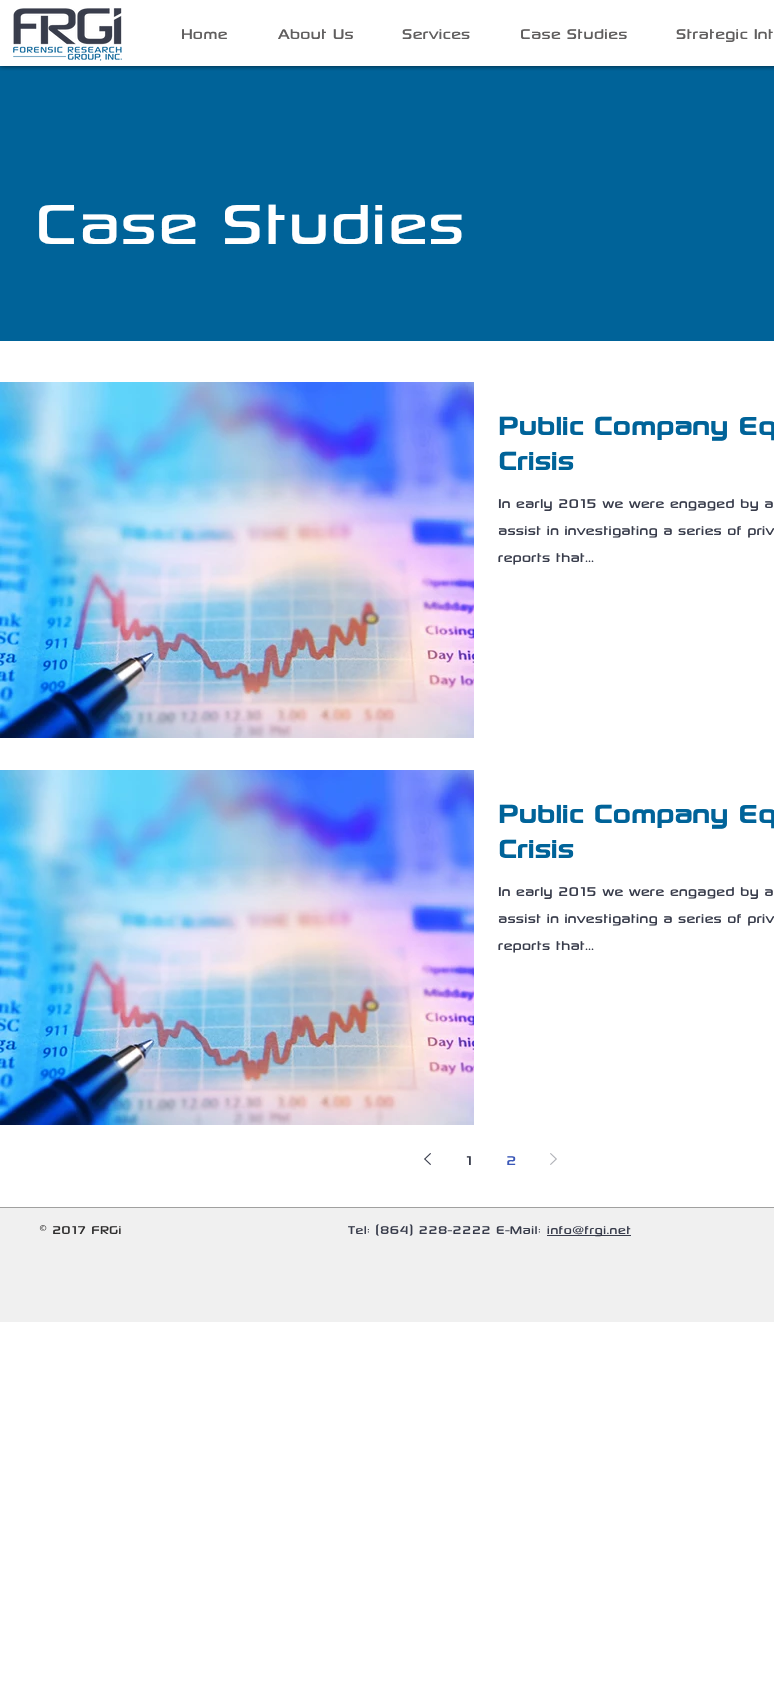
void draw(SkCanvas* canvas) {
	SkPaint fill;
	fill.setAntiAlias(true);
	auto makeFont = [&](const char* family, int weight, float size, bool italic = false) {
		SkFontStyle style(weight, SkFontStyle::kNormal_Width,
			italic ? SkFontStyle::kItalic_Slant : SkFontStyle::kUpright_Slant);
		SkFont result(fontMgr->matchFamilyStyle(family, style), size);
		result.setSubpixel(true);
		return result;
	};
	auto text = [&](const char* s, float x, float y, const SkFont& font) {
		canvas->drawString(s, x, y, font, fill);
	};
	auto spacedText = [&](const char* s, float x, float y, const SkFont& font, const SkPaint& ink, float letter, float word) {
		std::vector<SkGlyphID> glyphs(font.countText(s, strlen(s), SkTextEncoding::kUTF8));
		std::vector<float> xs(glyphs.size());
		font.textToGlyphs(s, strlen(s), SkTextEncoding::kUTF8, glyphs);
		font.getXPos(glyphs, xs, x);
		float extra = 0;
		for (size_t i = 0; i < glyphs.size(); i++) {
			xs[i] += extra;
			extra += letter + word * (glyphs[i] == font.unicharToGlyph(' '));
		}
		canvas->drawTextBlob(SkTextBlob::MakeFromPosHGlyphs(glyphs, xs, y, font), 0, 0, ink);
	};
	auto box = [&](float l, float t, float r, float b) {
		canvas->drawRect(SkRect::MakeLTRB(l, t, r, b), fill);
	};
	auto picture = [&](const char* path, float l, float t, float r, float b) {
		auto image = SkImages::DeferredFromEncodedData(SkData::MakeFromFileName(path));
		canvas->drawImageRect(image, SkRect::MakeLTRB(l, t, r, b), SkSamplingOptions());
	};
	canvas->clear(0xFFFFFFFF);
	fill.setColor(0xFF006399);
	box(0, 66, 774, 341);
	canvas->save();
	canvas->clipRect(SkRect::MakeLTRB(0, 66, 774, 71));
	fill.setColor(0xB3000000);
	fill.setMaskFilter(SkMaskFilter::MakeBlur(kNormal_SkBlurStyle, 2.5f));
	canvas->drawRect(SkRect::MakeLTRB(0, 0, 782, 66), fill);
	fill.setMaskFilter(nullptr);
	canvas->restore();
	picture("image0.png", 13, 8, 122, 61);
	picture("image1.png", 0, 382, 474, 738);
	picture("image2.png", 0, 770, 474, 1125);
	picture("image3.png", 424, 1153, 431, 1165);
	picture("image4.png", 550, 1153, 557, 1165);
	fill.setColor(0xFFF0F0F0);
	box(0, 1208, 774, 1322);
	fill.setColor(0xFFA0A09F);
	box(0, 1207, 774, 1208);
	fill.setColor(0xFF383C4B);
	box(547, 1235, 631, 1236);
	auto font1 = makeFont("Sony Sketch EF", 400, 20);
	fill.setColor(0xFF605E5E);
	text("Home", 181, 39, font1);
	text("About Us", 278, 39, font1);
	text("Services", 402, 39, font1);
	text("Case Studies", 520, 39, font1);
	text("Strategic Int", 676, 39, font1);
	auto font2 = makeFont("Sony Sketch EF", 400, 80);
	fill.setColor(0xFFFFFFFF);
	text("Case Studies", 35, 244, font2);
	auto font3 = makeFont("Sony Sketch EF", 700, 35);
	fill.setColor(0xFF006399);
	text("Public Company Eq", 498, 435, font3);
	text("Crisis", 498, 470, font3);
	auto font4 = makeFont("Sony Sketch EF", 400, 18);
	fill.setColor(0xFF383C4B);
	text("In early 2015 we were engaged by a", 498, 508, font4);
	text("assist in investigating a series of priv", 498, 535, font4);
	text("reports that...", 498, 562, font4);
	fill.setColor(0xFF006399);
	text("Public Company Eq", 498, 823, font3);
	text("Crisis", 498, 858, font3);
	fill.setColor(0xFF383C4B);
	text("In early 2015 we were engaged by a", 498, 896, font4);
	text("assist in investigating a series of priv", 498, 923, font4);
	text("reports that...", 498, 950, font4);
	text("1", 465, 1165, font4);
	fill.setColor(0xFF3B58B8);
	text("2", 506, 1165, font4);
	auto font5 = makeFont("Sony Sketch EF", 400, 16);
	fill.setColor(0xFF2F2E2E);
	text("© 2017 FRGi", 39, 1234, font5);
	fill.setColor(0xFF383C4B);
	spacedText("Tel: (864) 228-2222 E-Mail:", 348, 1234, font5, fill, 0.3f, 0);
	spacedText("info@frgi.net", 547, 1234, font5, fill, 0.3f, 0);
}
